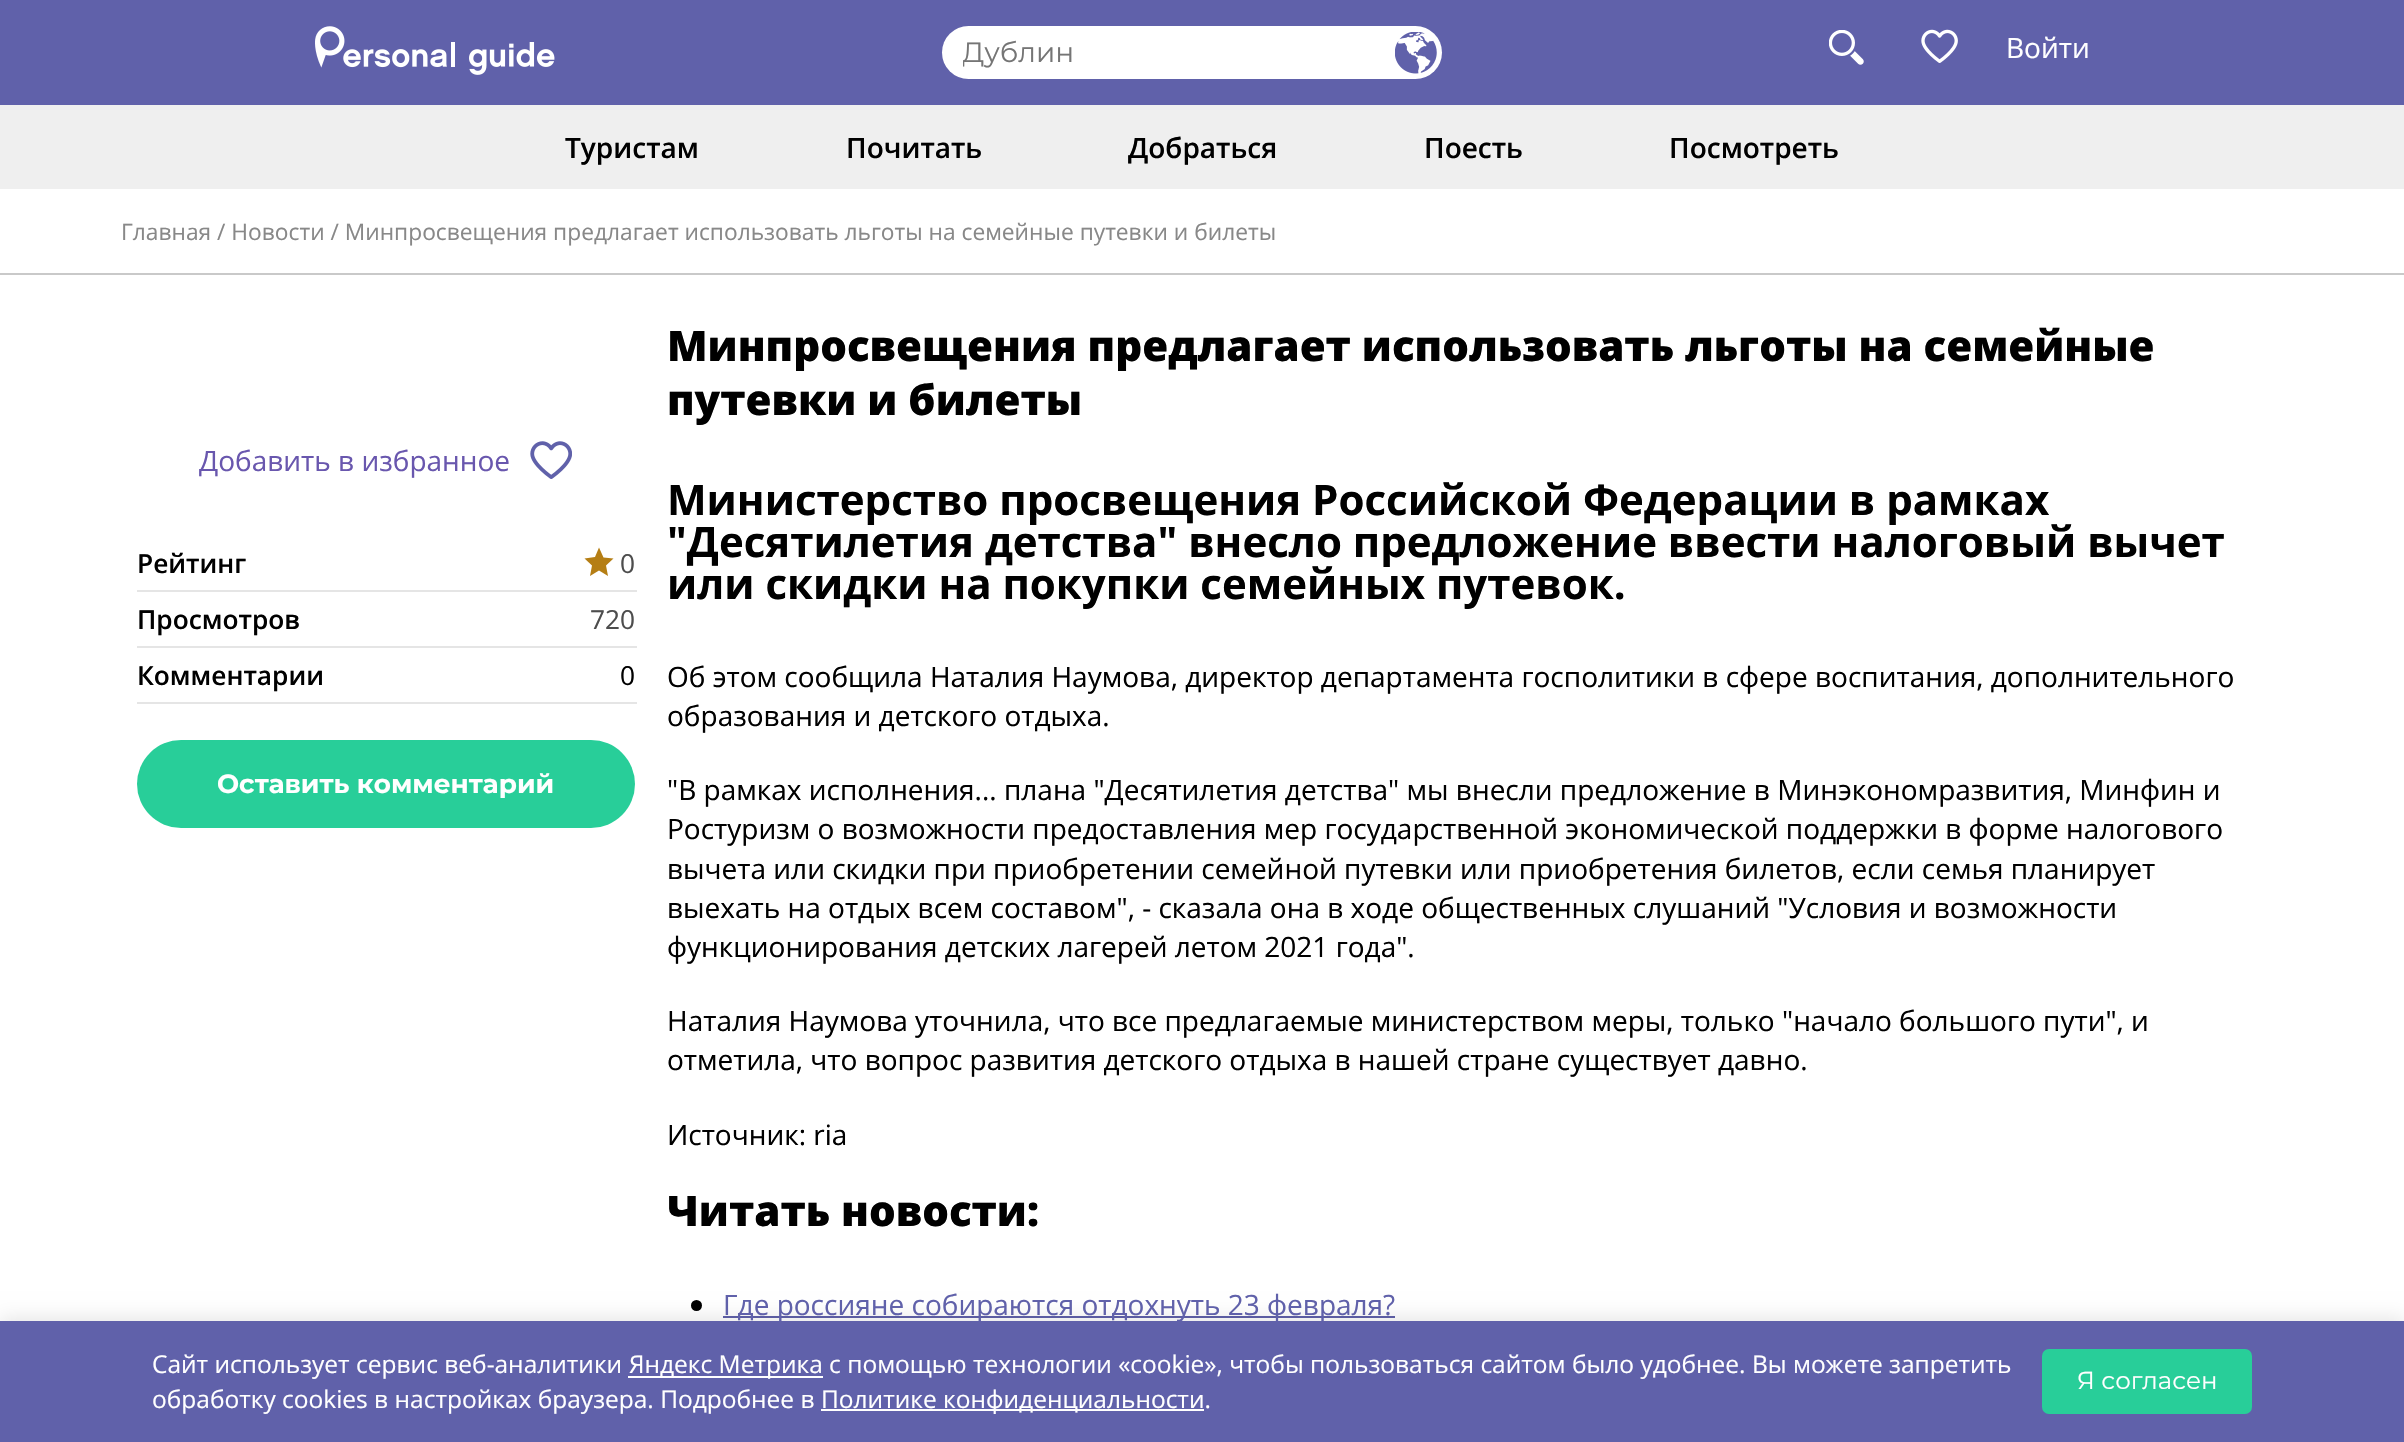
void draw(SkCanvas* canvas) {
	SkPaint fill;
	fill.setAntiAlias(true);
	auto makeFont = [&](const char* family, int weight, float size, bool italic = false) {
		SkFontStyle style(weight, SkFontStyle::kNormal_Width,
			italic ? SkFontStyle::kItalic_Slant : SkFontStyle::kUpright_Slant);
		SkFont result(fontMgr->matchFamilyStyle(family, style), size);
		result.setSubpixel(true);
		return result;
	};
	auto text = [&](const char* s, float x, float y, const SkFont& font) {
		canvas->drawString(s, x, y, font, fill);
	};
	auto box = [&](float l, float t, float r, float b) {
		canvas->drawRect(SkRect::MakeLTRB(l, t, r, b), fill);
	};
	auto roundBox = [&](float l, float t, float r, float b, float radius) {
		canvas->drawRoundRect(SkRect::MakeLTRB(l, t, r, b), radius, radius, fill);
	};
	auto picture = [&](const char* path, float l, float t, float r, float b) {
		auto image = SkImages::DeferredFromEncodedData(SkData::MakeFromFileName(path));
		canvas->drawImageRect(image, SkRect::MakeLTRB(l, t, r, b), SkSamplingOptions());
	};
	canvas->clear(0xFFFFFFFF);
	fill.setColor(0xFF6061AA);
	box(0, 0, 2404, 105);
	picture("image0.png", 315, 26, 555, 75);
	fill.setColor(0xFFFFFFFF);
	roundBox(942, 26, 1442, 79, 26.5f);
	picture("image1.png", 1395, 32, 1437, 74);
	picture("image2.png", 1829, 30, 1864, 65);
	picture("image3.png", 1921, 29, 1958, 63);
	fill.setColor(0xFFEFEFEF);
	box(0, 105, 2404, 189);
	fill.setColor(0xFFC9C9C9);
	box(0, 273, 2404, 275);
	picture("image4.png", 530, 441, 572, 479);
	fill.setColor(0xFFE5E5E5);
	box(137, 590, 637, 592);
	fill.setColor(0xFFB57E14);
	canvas->drawPath(SkPathBuilder(SkPathFillType::kEvenOdd).moveTo(599, 547.5f).lineTo(603.5f, 557.5f).lineTo(613.5f, 558.5f).lineTo(606, 565.5f).lineTo(608, 576).lineTo(599, 570.5f).lineTo(590, 576).lineTo(592, 565.5f).lineTo(584.5f, 558.5f).lineTo(595, 557).close().detach(), fill);
	fill.setColor(0xFFE5E5E5);
	box(137, 646, 637, 648);
	box(137, 702, 637, 704);
	fill.setColor(0xFF28CE99);
	roundBox(137, 740, 635, 828, 44);
	fill.setColor(0xFF000000);
	canvas->drawCircle(696.5f, 1305.5f, 5.5f, fill);
	fill.setColor(0xFF6061AA);
	box(723, 1316, 1395, 1318);
	fill.setColor(0x1A000000);
	fill.setMaskFilter(SkMaskFilter::MakeBlur(kNormal_SkBlurStyle, 9));
	canvas->drawRect(SkRect::MakeLTRB(0, 1318, 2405, 1439), fill);
	fill.setMaskFilter(nullptr);
	fill.setColor(0xFF6061AA);
	box(0, 1321, 2404, 1442);
	fill.setColor(0xFFFFFFFF);
	box(628, 1376, 823, 1378);
	box(821, 1409, 1204, 1411);
	fill.setColor(0xFF28CE99);
	roundBox(2042, 1349, 2252, 1414, 7);
	canvas->save();
	canvas->clipRect(SkRect::MakeLTRB(963, 37, 1421, 70));
	auto font1 = makeFont("Montserrat", 400, 28);
	fill.setColor(0xFF757575);
	text("Дублин", 962, 62, font1);
	canvas->restore();
	auto font2 = makeFont("Open Sans", 400, 28);
	fill.setColor(0xFFFFFFFF);
	text("Войти", 2006, 58, font2);
	auto font3 = makeFont("Open Sans", 600, 28);
	fill.setColor(0xFF000000);
	text("Туристам", 565, 158, font3);
	text("Почитать", 846, 158, font3);
	text("Добраться", 1128, 158, font3);
	text("Поесть", 1424, 158, font3);
	text("Посмотреть", 1669, 158, font3);
	auto font4 = makeFont("Open Sans", 400, 22.75f);
	fill.setColor(0xFF888888);
	text("Главная / Новости / Минпросвещения предлагает использовать льготы на семейные путевки и билеты", 121, 240, font4);
	fill.setColor(0xFF6957AE);
	text("Добавить в избранное", 199, 471, font2);
	auto font5 = makeFont("Open Sans", 600, 26.25f);
	fill.setColor(0xFF000000);
	text("Рейтинг", 137, 573, font5);
	auto font6 = makeFont("Open Sans", 400, 26.25f);
	fill.setColor(0xFF4D4D4D);
	text("0", 620, 573, font6);
	fill.setColor(0xFF000000);
	text("Просмотров", 137, 629, font5);
	fill.setColor(0xFF4D4D4D);
	text("720", 590, 629, font6);
	fill.setColor(0xFF000000);
	text("Комментарии", 137, 685, font5);
	text("0", 620, 685, font6);
	auto font7 = makeFont("Montserrat", 700, 26.25f);
	fill.setColor(0xFFFFFFFF);
	text("Оставить комментарий", 217, 793, font7);
	auto font8 = makeFont("Open Sans", 800, 42);
	fill.setColor(0xFF000000);
	text("Минпросвещения предлагает использовать льготы на семейные", 667, 361, font8);
	text("путевки и билеты", 667, 415, font8);
	auto font9 = makeFont("Open Sans", 700, 42);
	text("Министерство просвещения Российской Федерации в рамках", 667, 515, font9);
	text("\"Десятилетия детства\" внесло предложение ввести налоговый вычет", 667, 557, font9);
	text("или скидки на покупки семейных путевок.", 667, 599, font9);
	text("Об этом сообщила Наталия Наумова, директор департамента госполитики в сфере воспитания, дополнительного", 667, 687, font2);
	text("образования и детского отдыха.", 667, 726, font2);
	text("\"В рамках исполнения... плана \"Десятилетия детства\" мы внесли предложение в Минэкономразвития, Минфин и", 667, 800, font2);
	text("Ростуризм о возможности предоставления мер государственной экономической поддержки в форме налогового", 667, 839, font2);
	text("вычета или скидки при приобретении семейной путевки или приобретения билетов, если семья планирует", 667, 879, font2);
	text("выехать на отдых всем составом\", - сказала она в ходе общественных слушаний \"Условия и возможности", 667, 918, font2);
	text("функционирования детских лагерей летом 2021 года\".", 667, 957, font2);
	text("Наталия Наумова уточнила, что все предлагаемые министерством меры, только \"начало большого пути\", и", 667, 1031, font2);
	text("отметила, что вопрос развития детского отдыха в нашей стране существует давно.", 667, 1070, font2);
	text("Источник: ria", 667, 1145, font2);
	text("Читать новости:", 667, 1226, font8);
	fill.setColor(0xFF6061AA);
	text("Где россияне собираются отдохнуть 23 февраля?", 723, 1315, font2);
	auto font10 = makeFont("Open Sans", 400, 24.5f);
	fill.setColor(0xFFFFFFFF);
	text("Сайт использует сервис веб-аналитики", 152, 1373, font10);
	text("Яндекс Метрика с помощью технологии «cookie», чтобы пользоваться сайтом было удобнее. Вы можете запретить", 629, 1373, font10);
	text("обработку cookies в настройках браузера. Подробнее в", 152, 1408, font10);
	text("Политике конфиденциальности.", 821, 1408, font10);
	auto font11 = makeFont("Montserrat", 400, 24.5f);
	text("Я согласен", 2077, 1389, font11);
}
